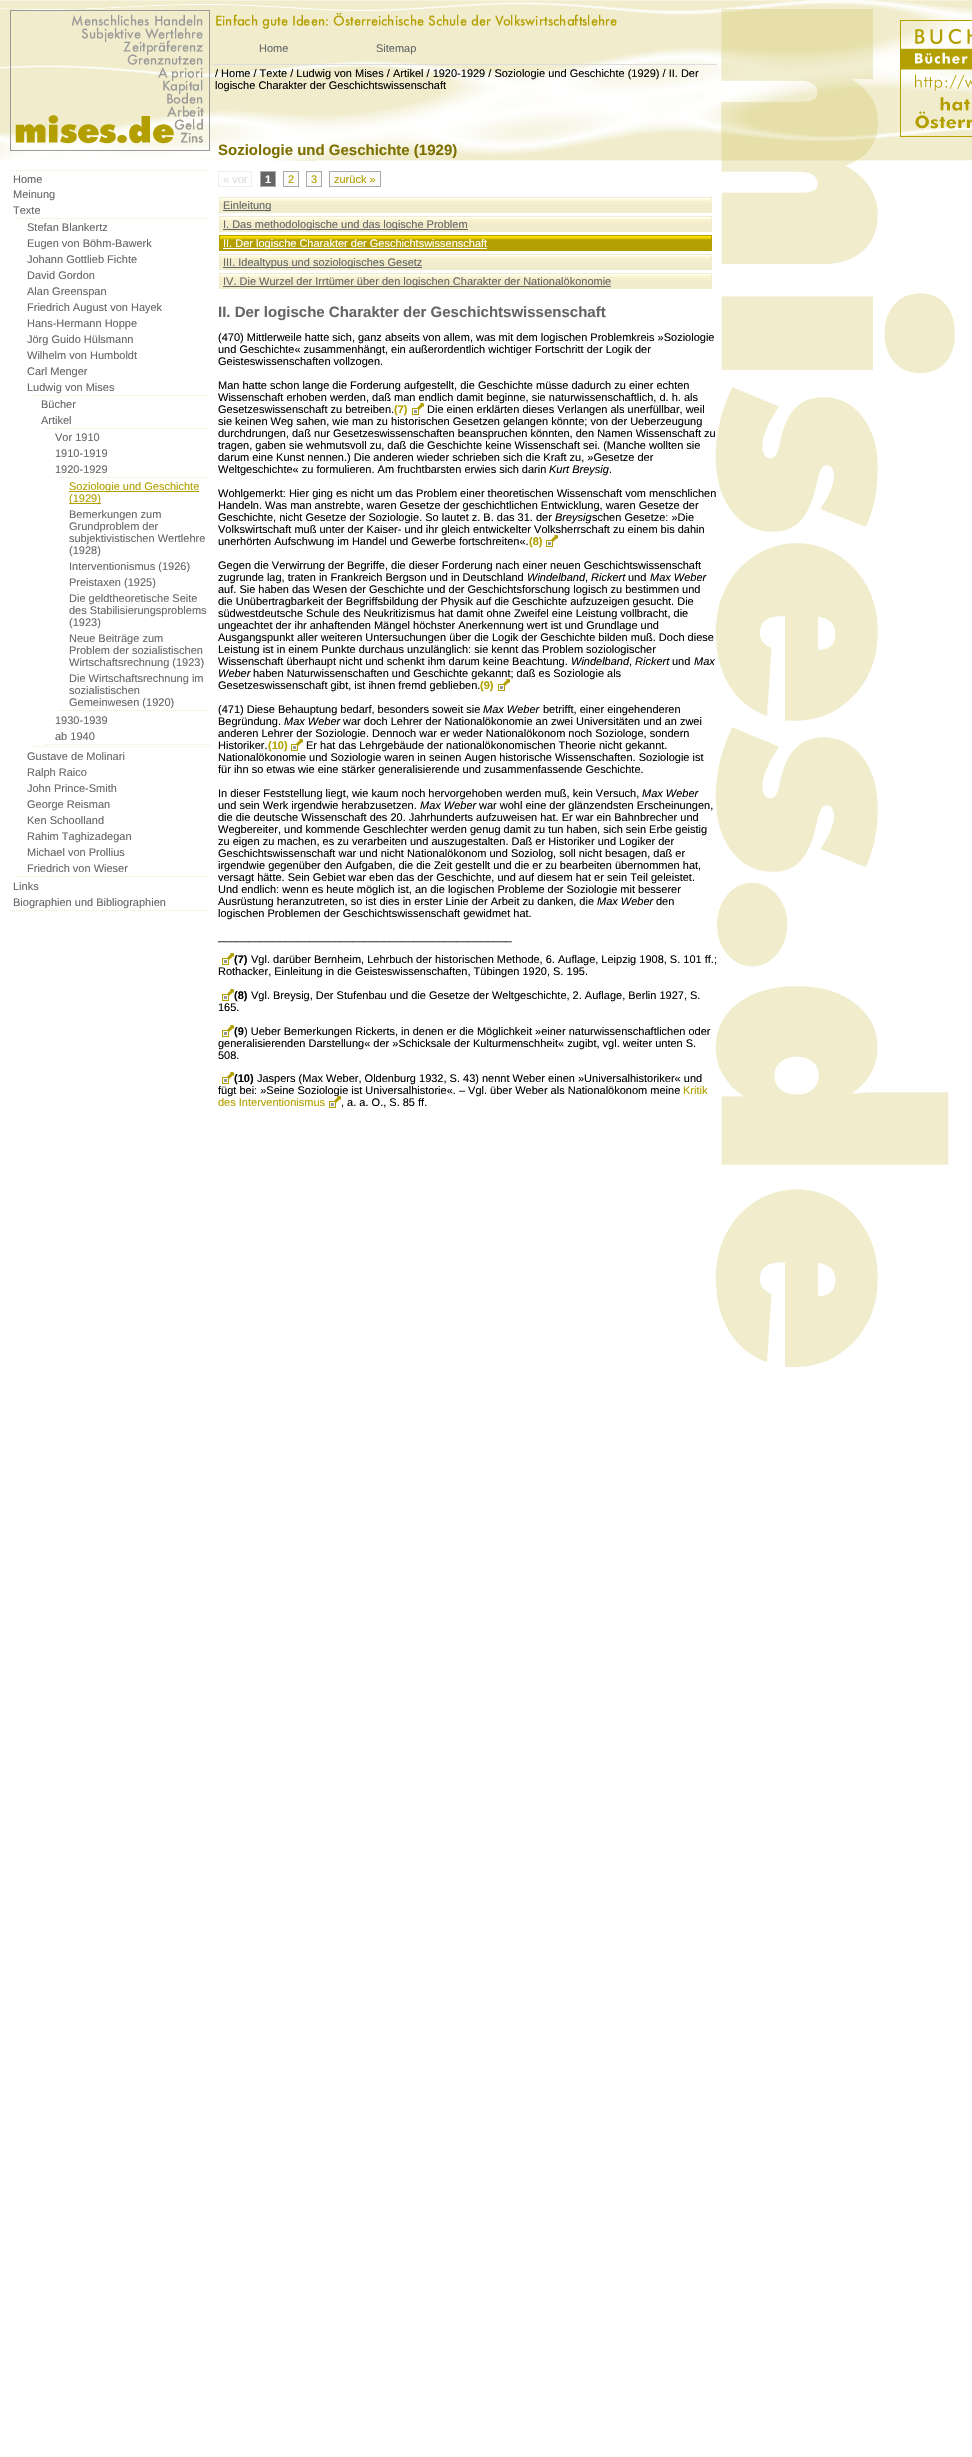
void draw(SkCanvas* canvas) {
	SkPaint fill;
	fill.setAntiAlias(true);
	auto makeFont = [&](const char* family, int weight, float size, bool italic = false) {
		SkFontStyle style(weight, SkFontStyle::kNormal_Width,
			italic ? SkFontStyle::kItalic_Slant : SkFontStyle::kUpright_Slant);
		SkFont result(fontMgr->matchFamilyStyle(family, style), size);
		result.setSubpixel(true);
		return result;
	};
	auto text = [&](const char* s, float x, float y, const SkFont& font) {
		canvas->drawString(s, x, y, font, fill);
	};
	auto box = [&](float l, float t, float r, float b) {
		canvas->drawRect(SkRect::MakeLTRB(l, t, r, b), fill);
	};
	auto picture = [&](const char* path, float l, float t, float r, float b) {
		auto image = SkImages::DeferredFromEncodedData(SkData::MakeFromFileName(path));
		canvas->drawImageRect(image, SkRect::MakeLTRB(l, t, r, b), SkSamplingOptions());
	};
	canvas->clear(0xFFFFFFFF);
	picture("image0.png", 0, 0, 972, 1367);
	fill.setStyle(SkPaint::kStroke_Style);
	fill.setStrokeWidth(1);
	fill.setColor(0xFFB3A000);
	canvas->drawRect(SkRect::MakeLTRB(900.5f, 20.5f, 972.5f, 136.5f), fill);
	picture("image1.png", 901, 28, 972, 129);
	fill.setStyle(SkPaint::kFill_Style);
	fill.setColor(0xFFDDDDDD);
	box(213, 64, 717, 65);
	fill.setStyle(SkPaint::kStroke_Style);
	fill.setColor(0xFFF0ECCC);
	fill.setPathEffect(SkDashPathEffect::Make({{1, 1}}, 0));
	canvas->drawPath(SkPathBuilder().moveTo(10, 170.5f).lineTo(210, 170.5f).detach(), fill);
	fill.setPathEffect(nullptr);
	fill.setPathEffect(SkDashPathEffect::Make({{1, 1}}, 0));
	canvas->drawPath(SkPathBuilder().moveTo(10, 910.5f).lineTo(210, 910.5f).detach(), fill);
	fill.setPathEffect(nullptr);
	fill.setPathEffect(SkDashPathEffect::Make({{1, 1}}, 0));
	canvas->drawPath(SkPathBuilder().moveTo(17, 218.5f).lineTo(210, 218.5f).detach(), fill);
	fill.setPathEffect(nullptr);
	fill.setPathEffect(SkDashPathEffect::Make({{1, 1}}, 0));
	canvas->drawPath(SkPathBuilder().moveTo(17, 876.5f).lineTo(210, 876.5f).detach(), fill);
	fill.setPathEffect(nullptr);
	fill.setPathEffect(SkDashPathEffect::Make({{1, 1}}, 0));
	canvas->drawPath(SkPathBuilder().moveTo(31, 395.5f).lineTo(210, 395.5f).detach(), fill);
	fill.setPathEffect(nullptr);
	fill.setPathEffect(SkDashPathEffect::Make({{1, 1}}, 0));
	canvas->drawPath(SkPathBuilder().moveTo(31, 746.5f).lineTo(210, 746.5f).detach(), fill);
	fill.setPathEffect(nullptr);
	fill.setPathEffect(SkDashPathEffect::Make({{1, 1}}, 0));
	canvas->drawPath(SkPathBuilder().moveTo(45, 428.5f).lineTo(210, 428.5f).detach(), fill);
	fill.setPathEffect(nullptr);
	fill.setPathEffect(SkDashPathEffect::Make({{1, 1}}, 0));
	canvas->drawPath(SkPathBuilder().moveTo(45, 744.5f).lineTo(210, 744.5f).detach(), fill);
	fill.setPathEffect(nullptr);
	fill.setPathEffect(SkDashPathEffect::Make({{1, 1}}, 0));
	canvas->drawPath(SkPathBuilder().moveTo(59, 477.5f).lineTo(210, 477.5f).detach(), fill);
	fill.setPathEffect(nullptr);
	fill.setPathEffect(SkDashPathEffect::Make({{1, 1}}, 0));
	canvas->drawPath(SkPathBuilder().moveTo(59, 710.5f).lineTo(210, 710.5f).detach(), fill);
	fill.setPathEffect(nullptr);
	fill.setStyle(SkPaint::kFill_Style);
	fill.setColor(0xFFB3A000);
	box(69, 491, 199, 492);
	box(69, 503, 101, 504);
	fill.setStyle(SkPaint::kStroke_Style);
	fill.setColor(0xFFEEEEEE);
	canvas->drawRect(SkRect::MakeLTRB(218.5f, 171.5f, 251.5f, 186.5f), fill);
	fill.setStyle(SkPaint::kFill_Style);
	fill.setColor(0xFF666666);
	canvas->drawRect(SkRect::MakeLTRB(260.5f, 171.5f, 275.5f, 186.5f), fill);
	fill.setStyle(SkPaint::kStroke_Style);
	fill.setColor(0xFFAAAAAA);
	canvas->drawRect(SkRect::MakeLTRB(260.5f, 171.5f, 275.5f, 186.5f), fill);
	fill.setStyle(SkPaint::kFill_Style);
	fill.setColor(0xFFFAFAFA);
	canvas->drawRect(SkRect::MakeLTRB(283.5f, 171.5f, 298.5f, 186.5f), fill);
	fill.setStyle(SkPaint::kStroke_Style);
	fill.setColor(0xFFAAAAAA);
	canvas->drawRect(SkRect::MakeLTRB(283.5f, 171.5f, 298.5f, 186.5f), fill);
	fill.setStyle(SkPaint::kFill_Style);
	fill.setColor(0xFFFAFAFA);
	canvas->drawRect(SkRect::MakeLTRB(306.5f, 171.5f, 321.5f, 186.5f), fill);
	fill.setStyle(SkPaint::kStroke_Style);
	fill.setColor(0xFFAAAAAA);
	canvas->drawRect(SkRect::MakeLTRB(306.5f, 171.5f, 321.5f, 186.5f), fill);
	fill.setStyle(SkPaint::kFill_Style);
	fill.setColor(0xFFFAFAFA);
	canvas->drawRect(SkRect::MakeLTRB(329.5f, 171.5f, 380.5f, 186.5f), fill);
	fill.setStyle(SkPaint::kStroke_Style);
	fill.setColor(0xFFAAAAAA);
	canvas->drawRect(SkRect::MakeLTRB(329.5f, 171.5f, 380.5f, 186.5f), fill);
	fill.setStyle(SkPaint::kFill_Style);
	fill.setColor(0xFFF0ECCC);
	box(220, 204, 711, 212);
	picture("image2.png", 220, 198, 711, 204);
	fill.setStyle(SkPaint::kStroke_Style);
	canvas->drawRect(SkRect::MakeLTRB(219.5f, 197.5f, 711.5f, 212.5f), fill);
	fill.setStyle(SkPaint::kFill_Style);
	fill.setColor(0xFF666666);
	box(223, 210, 271, 211);
	fill.setColor(0xFFF0ECCC);
	box(220, 223, 711, 231);
	picture("image2.png", 220, 217, 711, 223);
	fill.setStyle(SkPaint::kStroke_Style);
	canvas->drawRect(SkRect::MakeLTRB(219.5f, 216.5f, 711.5f, 231.5f), fill);
	fill.setStyle(SkPaint::kFill_Style);
	fill.setColor(0xFF666666);
	box(223, 229, 468, 230);
	fill.setColor(0xFFB3A000);
	box(220, 240, 711, 250);
	picture("image3.png", 220, 236, 711, 240);
	fill.setStyle(SkPaint::kStroke_Style);
	canvas->drawRect(SkRect::MakeLTRB(219.5f, 235.5f, 711.5f, 250.5f), fill);
	fill.setStyle(SkPaint::kFill_Style);
	fill.setColor(0xFFFFFFFF);
	box(223, 248, 487, 249);
	fill.setColor(0xFFF0ECCC);
	box(220, 261, 711, 269);
	picture("image2.png", 220, 255, 711, 261);
	fill.setStyle(SkPaint::kStroke_Style);
	canvas->drawRect(SkRect::MakeLTRB(219.5f, 254.5f, 711.5f, 269.5f), fill);
	fill.setStyle(SkPaint::kFill_Style);
	fill.setColor(0xFF666666);
	box(223, 267, 422, 268);
	fill.setColor(0xFFF0ECCC);
	box(220, 280, 711, 288);
	picture("image2.png", 220, 274, 711, 280);
	fill.setStyle(SkPaint::kStroke_Style);
	canvas->drawRect(SkRect::MakeLTRB(219.5f, 273.5f, 711.5f, 288.5f), fill);
	fill.setStyle(SkPaint::kFill_Style);
	fill.setColor(0xFF666666);
	box(223, 286, 611, 287);
	picture("image4.png", 222, 953, 234, 965);
	picture("image4.png", 222, 989, 234, 1001);
	picture("image4.png", 222, 1025, 234, 1037);
	picture("image4.png", 222, 1072, 234, 1084);
	auto font1 = makeFont("Liberation Sans", 400, 11);
	text("Home", 259, 52, font1);
	text("Sitemap", 376, 52, font1);
	fill.setColor(0xFF000000);
	text("/ Home / Texte / Ludwig von Mises / Artikel / 1920-1929 / Soziologie und Geschichte (1929) / II. Der", 215, 77, font1);
	text("logische Charakter der Geschichtswissenschaft", 215, 89, font1);
	fill.setColor(0xFF666666);
	text("Home", 13, 183, font1);
	text("Meinung", 13, 198, font1);
	text("Texte", 13, 214, font1);
	text("Stefan Blankertz", 27, 231, font1);
	text("Eugen von Böhm-Bawerk", 27, 247, font1);
	text("Johann Gottlieb Fichte", 27, 263, font1);
	text("David Gordon", 27, 279, font1);
	text("Alan Greenspan", 27, 295, font1);
	text("Friedrich August von Hayek", 27, 311, font1);
	text("Hans-Hermann Hoppe", 27, 327, font1);
	text("Jörg Guido Hülsmann", 27, 343, font1);
	text("Wilhelm von Humboldt", 27, 359, font1);
	text("Carl Menger", 27, 375, font1);
	text("Ludwig von Mises", 27, 391, font1);
	text("Bücher", 41, 408, font1);
	text("Artikel", 41, 424, font1);
	text("Vor 1910", 55, 441, font1);
	text("1910-1919", 55, 457, font1);
	text("1920-1929", 55, 473, font1);
	fill.setColor(0xFFB3A000);
	text("Soziologie und Geschichte", 69, 490, font1);
	text("(1929)", 69, 502, font1);
	fill.setColor(0xFF666666);
	text("Bemerkungen zum", 69, 518, font1);
	text("Grundproblem der", 69, 530, font1);
	text("subjektivistischen Wertlehre", 69, 542, font1);
	text("(1928)", 69, 554, font1);
	text("Interventionismus (1926)", 69, 570, font1);
	text("Preistaxen (1925)", 69, 586, font1);
	text("Die geldtheoretische Seite", 69, 602, font1);
	text("des Stabilisierungsproblems", 69, 614, font1);
	text("(1923)", 69, 626, font1);
	text("Neue Beiträge zum", 69, 642, font1);
	text("Problem der sozialistischen", 69, 654, font1);
	text("Wirtschaftsrechnung (1923)", 69, 666, font1);
	text("Die Wirtschaftsrechnung im", 69, 682, font1);
	text("sozialistischen", 69, 694, font1);
	text("Gemeinwesen (1920)", 69, 706, font1);
	text("1930-1939", 55, 724, font1);
	text("ab 1940", 55, 740, font1);
	text("Gustave de Molinari", 27, 760, font1);
	text("Ralph Raico", 27, 776, font1);
	text("John Prince-Smith", 27, 792, font1);
	text("George Reisman", 27, 808, font1);
	text("Ken Schoolland", 27, 824, font1);
	text("Rahim Taghizadegan", 27, 840, font1);
	text("Michael von Prollius", 27, 856, font1);
	text("Friedrich von Wieser", 27, 872, font1);
	text("Links", 13, 890, font1);
	text("Biographien und Bibliographien", 13, 906, font1);
	auto font2 = makeFont("Liberation Sans", 700, 15);
	fill.setColor(0xFF7D7000);
	text("Soziologie und Geschichte (1929)", 218, 155, font2);
	fill.setColor(0xFFDDDDDD);
	text("« vor", 223, 183, font1);
	auto font3 = makeFont("Liberation Sans", 700, 11);
	fill.setColor(0xFFFFFFFF);
	text("1", 265, 183, font3);
	fill.setColor(0xFFB3A000);
	text("2", 288, 183, font1);
	text("3", 311, 183, font1);
	text("zurück »", 334, 183, font1);
	fill.setColor(0xFF666666);
	text("Einleitung", 223, 209, font1);
	text("I. Das methodologische und das logische Problem", 223, 228, font1);
	fill.setColor(0xFFFFFFFF);
	text("II. Der logische Charakter der Geschichtswissenschaft", 223, 247, font1);
	fill.setColor(0xFF666666);
	text("III. Idealtypus und soziologisches Gesetz", 223, 266, font1);
	text("IV. Die Wurzel der Irrtümer über den logischen Charakter der Nationalökonomie", 223, 285, font1);
	text("II. Der logische Charakter der Geschichtswissenschaft", 218, 317, font2);
	fill.setColor(0xFF000000);
	text("(470) Mittlerweile hatte sich, ganz abseits von allem, was mit dem logischen Problemkreis »Soziologie", 218, 341, font1);
	text("und Geschichte« zusammenhängt, ein außerordentlich wichtiger Fortschritt der Logik der", 218, 353, font1);
	text("Geisteswissenschaften vollzogen.", 218, 365, font1);
	text("Man hatte schon lange die Forderung aufgestellt, die Geschichte müsse dadurch zu einer echten", 218, 389, font1);
	text("Wissenschaft erhoben werden, daß man endlich damit beginne, sie naturwissenschaftlich, d. h. als", 218, 401, font1);
	text("Gesetzeswissenschaft zu betreiben.", 218, 413, font1);
	fill.setColor(0xFFB3A000);
	text("(7)", 394, 413, font3);
	picture("image4.png", 412, 403, 424, 415);
	fill.setColor(0xFF000000);
	text("Die einen erklärten dieses Verlangen als unerfüllbar, weil", 427, 413, font1);
	text("sie keinen Weg sahen, wie man zu historischen Gesetzen gelangen könnte; von der Ueberzeugung", 218, 425, font1);
	text("durchdrungen, daß nur Gesetzeswissenschaften beanspruchen könnten, den Namen Wissenschaft zu", 218, 437, font1);
	text("tragen, gaben sie wehmutsvoll zu, daß die Geschichte keine Wissenschaft sei. (Manche wollten sie", 218, 449, font1);
	text("darum eine Kunst nennen.) Die anderen wieder schrieben sich die Kraft zu, »Gesetze der", 218, 461, font1);
	text("Weltgeschichte« zu formulieren. Am fruchtbarsten erwies sich darin", 218, 473, font1);
	auto font4 = makeFont("Liberation Sans", 400, 11, true);
	text("Kurt Breysig", 549, 473, font4);
	text(".", 609, 473, font1);
	text("Wohlgemerkt: Hier ging es nicht um das Problem einer theoretischen Wissenschaft vom menschlichen", 218, 497, font1);
	text("Handeln. Was man anstrebte, waren Gesetze der geschichtlichen Entwicklung, waren Gesetze der", 218, 509, font1);
	text("Geschichte, nicht Gesetze der Soziologie. So lautet z. B. das 31. der", 218, 521, font1);
	text("Breysig", 555, 521, font4);
	text("schen Gesetze: »Die", 592, 521, font1);
	text("Volkswirtschaft muß unter der Kaiser- und ihr gleich entwickelter Volksherrschaft zu einem bis dahin", 218, 533, font1);
	text("unerhörten Aufschwung im Handel und Gewerbe fortschreiten«.", 218, 545, font1);
	fill.setColor(0xFFB3A000);
	text("(8)", 529, 545, font3);
	picture("image4.png", 546, 535, 558, 547);
	fill.setColor(0xFF000000);
	text("Gegen die Verwirrung der Begriffe, die dieser Forderung nach einer neuen Geschichtswissenschaft", 218, 569, font1);
	text("zugrunde lag, traten in Frankreich Bergson und in Deutschland", 218, 581, font1);
	text("Windelband", 527, 581, font4);
	text("Rickert", 591, 581, font4);
	text("und", 628, 581, font1);
	text("Max Weber", 650, 581, font4);
	text(",", 585, 581, font1);
	text("auf. Sie haben das Wesen der Geschichte und der Geschichtsforschung logisch zu bestimmen und", 218, 593, font1);
	text("die Unübertragbarkeit der Begriffsbildung der Physik auf die Geschichte aufzuzeigen gesucht. Die", 218, 605, font1);
	text("südwestdeutsche Schule des Neukritizismus hat damit ohne Zweifel eine Leistung vollbracht, die", 218, 617, font1);
	text("ungeachtet der ihr anhaftenden Mängel höchster Anerkennung wert ist und Grundlage und", 218, 629, font1);
	text("Ausgangspunkt aller weiteren Untersuchungen über die Logik der Geschichte bilden muß. Doch diese", 218, 641, font1);
	text("Leistung ist in einem Punkte durchaus unzulänglich: sie kennt das Problem soziologischer", 218, 653, font1);
	text("Wissenschaft überhaupt nicht und schenkt ihm darum keine Beachtung.", 218, 665, font1);
	text("Windelband", 571, 665, font4);
	text("Rickert", 635, 665, font4);
	text("und", 672, 665, font1);
	text("Max", 694, 665, font4);
	text(",", 629, 665, font1);
	text("Weber", 218, 677, font4);
	text("haben Naturwissenschaften und Geschichte gekannt; daß es Soziologie als", 253, 677, font1);
	text("Gesetzeswissenschaft gibt, ist ihnen fremd geblieben.", 218, 689, font1);
	fill.setColor(0xFFB3A000);
	text("(9)", 480, 689, font3);
	picture("image4.png", 498, 679, 510, 691);
	fill.setColor(0xFF000000);
	text("(471) Diese Behauptung bedarf, besonders soweit sie", 218, 713, font1);
	text("Max Weber", 483, 713, font4);
	text("betrifft, einer eingehenderen", 543, 713, font1);
	text("Begründung.", 218, 725, font1);
	text("Max Weber", 284, 725, font4);
	text("war doch Lehrer der Nationalökonomie an zwei Universitäten und an zwei", 343, 725, font1);
	text("anderen Lehrer der Soziologie. Dennoch war er weder Nationalökonom noch Soziologe, sondern", 218, 737, font1);
	text("Historiker.", 218, 749, font1);
	fill.setColor(0xFFB3A000);
	text("(10)", 268, 749, font3);
	picture("image4.png", 291, 739, 303, 751);
	fill.setColor(0xFF000000);
	text("Er hat das Lehrgebäude der nationalökonomischen Theorie nicht gekannt.", 306, 749, font1);
	text("Nationalökonomie und Soziologie waren in seinen Augen historische Wissenschaften. Soziologie ist", 218, 761, font1);
	text("für ihn so etwas wie eine stärker generalisierende und zusammenfassende Geschichte.", 218, 773, font1);
	text("In dieser Feststellung liegt, wie kaum noch hervorgehoben werden muß, kein Versuch,", 218, 797, font1);
	text("Max Weber", 642, 797, font4);
	text("und sein Werk irgendwie herabzusetzen.", 218, 809, font1);
	text("Max Weber", 420, 809, font4);
	text("war wohl eine der glänzendsten Erscheinungen,", 479, 809, font1);
	text("die die deutsche Wissenschaft des 20. Jahrhunderts aufzuweisen hat. Er war ein Bahnbrecher und", 218, 821, font1);
	text("Wegbereiter, und kommende Geschlechter werden genug damit zu tun haben, sich sein Erbe geistig", 218, 833, font1);
	text("zu eigen zu machen, es zu verarbeiten und auszugestalten. Daß er Historiker und Logiker der", 218, 845, font1);
	text("Geschichtswissenschaft war und nicht Nationalökonom und Soziolog, soll nicht besagen, daß er", 218, 857, font1);
	text("irgendwie gegenüber den Aufgaben, die die Zeit gestellt und die er zu bearbeiten übernommen hat,", 218, 869, font1);
	text("versagt hätte. Sein Gebiet war eben das der Geschichte, und auf diesem hat er sein Teil geleistet.", 218, 881, font1);
	text("Und endlich: wenn es heute möglich ist, an die logischen Probleme der Soziologie mit besserer", 218, 893, font1);
	text("Ausrüstung heranzutreten, so ist dies in erster Linie der Arbeit zu danken, die", 218, 905, font1);
	text("Max Weber", 597, 905, font4);
	text("den", 656, 905, font1);
	text("logischen Problemen der Geschichtswissenschaft gewidmet hat.", 218, 917, font1);
	text("________________________________________________", 218, 940, font1);
	text("(7)", 234, 963, font3);
	text("Vgl. darüber Bernheim, Lehrbuch der historischen Methode, 6. Auflage, Leipzig 1908, S. 101 ff.;", 251, 963, font1);
	text("Rothacker, Einleitung in die Geisteswissenschaften, Tübingen 1920, S. 195.", 218, 975, font1);
	text("(8)", 234, 999, font3);
	text("Vgl. Breysig, Der Stufenbau und die Gesetze der Weltgeschichte, 2. Auflage, Berlin 1927, S.", 251, 999, font1);
	text("165.", 218, 1011, font1);
	text("(9", 234, 1035, font3);
	text(") Ueber Bemerkungen Rickerts, in denen er die Möglichkeit »einer naturwissenschaftlichen oder", 244, 1035, font1);
	text("generalisierenden Darstellung« der »Schicksale der Kulturmenschheit« zugibt, vgl. weiter unten S.", 218, 1047, font1);
	text("508.", 218, 1059, font1);
	text("(10)", 234, 1082, font3);
	text("Jaspers (Max Weber, Oldenburg 1932, S. 43) nennt Weber einen »Universalhistoriker« und", 257, 1082, font1);
	text("fügt bei: »Seine Soziologie ist Universalhistorie«. – Vgl. über Weber als Nationalökonom meine", 218, 1094, font1);
	fill.setColor(0xFFB3A000);
	text("Kritik", 683, 1094, font1);
	text("des Interventionismus", 218, 1106, font1);
	picture("image4.png", 329, 1096, 341, 1108);
	fill.setColor(0xFF000000);
	text(", a. a. O., S. 85 ff.", 341, 1106, font1);
}
